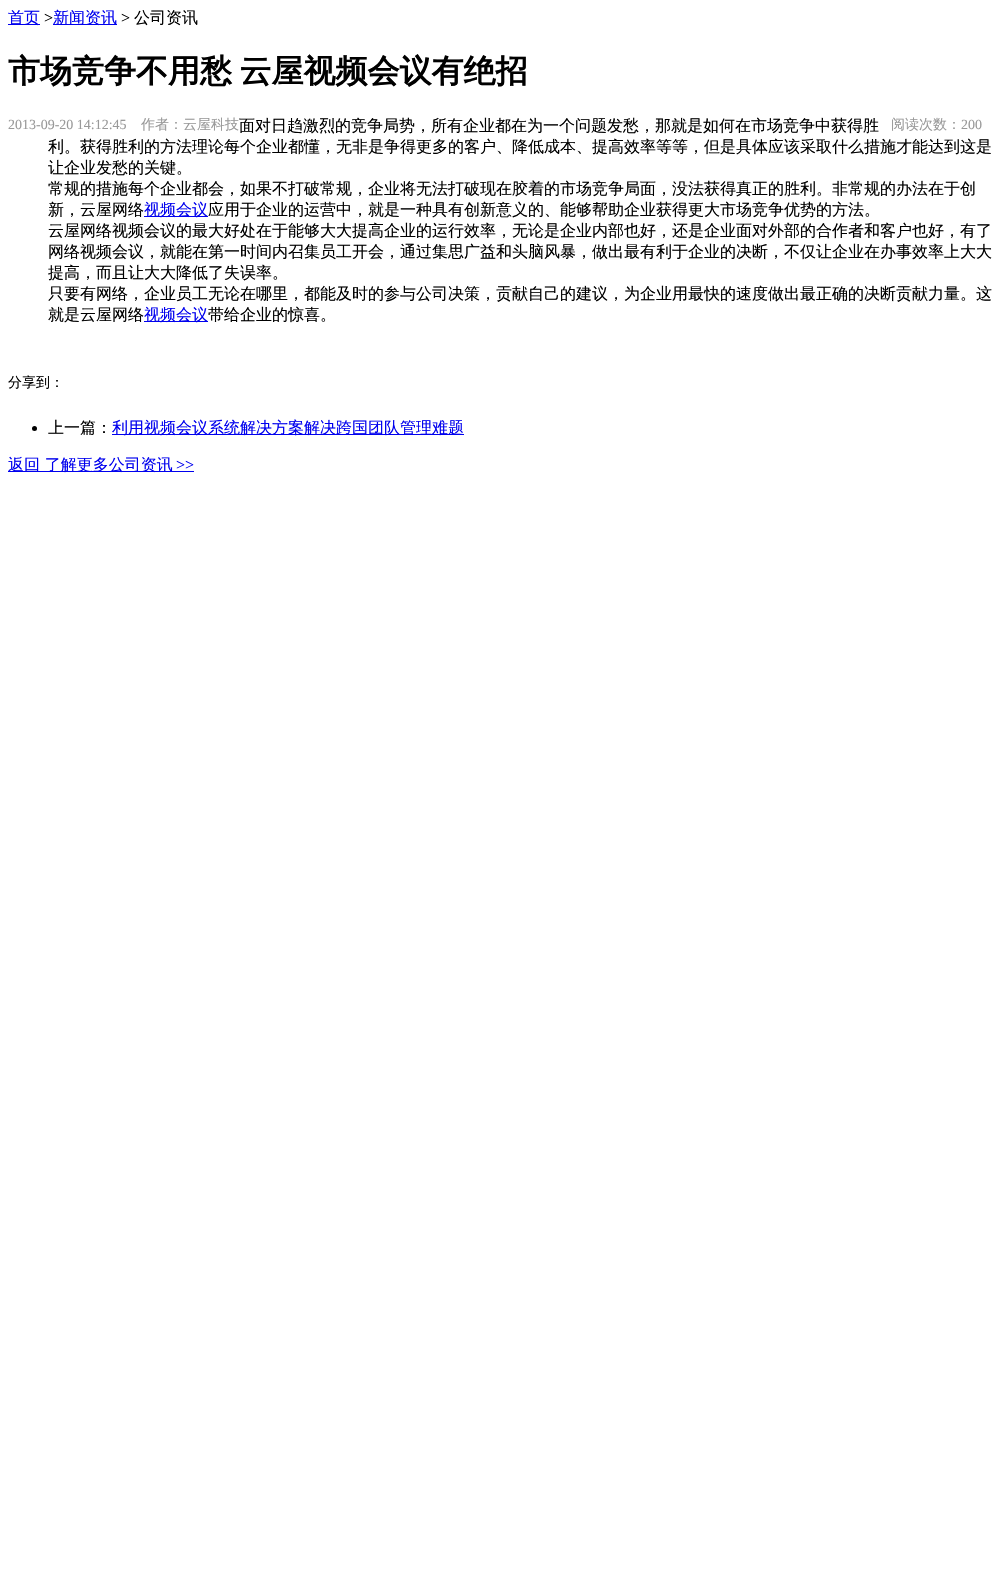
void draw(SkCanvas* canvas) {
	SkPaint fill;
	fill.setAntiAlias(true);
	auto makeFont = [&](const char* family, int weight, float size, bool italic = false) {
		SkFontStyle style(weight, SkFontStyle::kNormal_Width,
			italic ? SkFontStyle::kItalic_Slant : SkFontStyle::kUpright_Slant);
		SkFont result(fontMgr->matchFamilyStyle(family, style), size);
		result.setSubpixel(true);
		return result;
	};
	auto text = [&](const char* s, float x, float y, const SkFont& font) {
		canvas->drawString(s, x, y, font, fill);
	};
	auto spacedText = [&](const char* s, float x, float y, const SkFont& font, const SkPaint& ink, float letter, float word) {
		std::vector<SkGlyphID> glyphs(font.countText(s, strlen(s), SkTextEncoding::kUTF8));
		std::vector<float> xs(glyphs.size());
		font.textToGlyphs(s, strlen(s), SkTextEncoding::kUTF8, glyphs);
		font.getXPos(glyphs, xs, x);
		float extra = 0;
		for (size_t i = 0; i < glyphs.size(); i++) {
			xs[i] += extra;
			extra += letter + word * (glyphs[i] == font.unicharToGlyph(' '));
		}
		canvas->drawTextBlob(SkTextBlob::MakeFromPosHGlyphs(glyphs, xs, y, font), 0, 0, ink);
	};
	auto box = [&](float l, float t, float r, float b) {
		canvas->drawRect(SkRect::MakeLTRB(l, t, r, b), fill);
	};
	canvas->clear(0xFFFFFFFF);
	fill.setColor(0xFF0000EE);
	box(8, 24, 40, 25);
	box(53, 24, 117, 25);
	box(144, 216, 208, 217);
	box(144, 321, 208, 322);
	fill.setColor(0xFF000000);
	canvas->drawCircle(34.5f, 428.5f, 2.5f, fill);
	fill.setColor(0xFF0000EE);
	box(112, 434, 464, 435);
	box(8, 471, 194, 472);
	auto font1 = makeFont("WenQuanYi Zen Hei", 500, 16);
	text("首页", 8, 23, font1);
	auto font2 = makeFont("Liberation Serif", 400, 16);
	fill.setColor(0xFF000000);
	text(">", 44, 23, font2);
	fill.setColor(0xFF0000EE);
	text("新闻资讯", 53, 23, font1);
	fill.setColor(0xFF000000);
	text(">", 121, 23, font2);
	text("公司资讯", 134, 23, font1);
	auto font3 = makeFont("WenQuanYi Zen Hei", 700, 32);
	spacedText("市场竞争不用愁 云屋视频会议有绝招", 8, 82, font3, fill, 0, -2);
	auto font4 = makeFont("Liberation Serif", 400, 14);
	fill.setColor(0xFF999999);
	text("2013-09-20 14:12:45", 8, 129, font4);
	auto font5 = makeFont("WenQuanYi Zen Hei", 500, 14);
	text("作者：云屋科技", 141, 129, font5);
	text("阅读次数：", 891, 129, font5);
	text("200", 961, 129, font4);
	fill.setColor(0xFF000000);
	text("面对日趋激烈的竞争局势，所有企业都在为一个问题发愁，那就是如何在市场竞争中获得胜", 239, 131, font1);
	text("利。获得胜利的方法理论每个企业都懂，无非是争得更多的客户、降低成本、提高效率等等，但是具体应该采取什么措施才能达到这是", 48, 152, font1);
	text("让企业发愁的关键。", 48, 173, font1);
	text("常规的措施每个企业都会，如果不打破常规，企业将无法打破现在胶着的市场竞争局面，没法获得真正的胜利。非常规的办法在于创", 48, 194, font1);
	text("新，云屋网络", 48, 215, font1);
	fill.setColor(0xFF0000EE);
	text("视频会议", 144, 215, font1);
	fill.setColor(0xFF000000);
	text("应用于企业的运营中，就是一种具有创新意义的、能够帮助企业获得更大市场竞争优势的方法。", 208, 215, font1);
	text("云屋网络视频会议的最大好处在于能够大大提高企业的运行效率，无论是企业内部也好，还是企业面对外部的合作者和客户也好，有了", 48, 236, font1);
	text("网络视频会议，就能在第一时间内召集员工开会，通过集思广益和头脑风暴，做出最有利于企业的决断，不仅让企业在办事效率上大大", 48, 257, font1);
	text("提高，而且让大大降低了失误率。", 48, 278, font1);
	text("只要有网络，企业员工无论在哪里，都能及时的参与公司决策，贡献自己的建议，为企业用最快的速度做出最正确的决断贡献力量。这", 48, 299, font1);
	text("就是云屋网络", 48, 320, font1);
	fill.setColor(0xFF0000EE);
	text("视频会议", 144, 320, font1);
	fill.setColor(0xFF000000);
	text("带给企业的惊喜。", 208, 320, font1);
	text("分享到：", 8, 387, font5);
	text("上一篇：", 48, 433, font1);
	fill.setColor(0xFF0000EE);
	text("利用视频会议系统解决方案解决跨国团队管理难题", 112, 433, font1);
	text("返回 了解更多公司资讯", 8, 470, font1);
	text(">>", 176, 470, font2);
}
